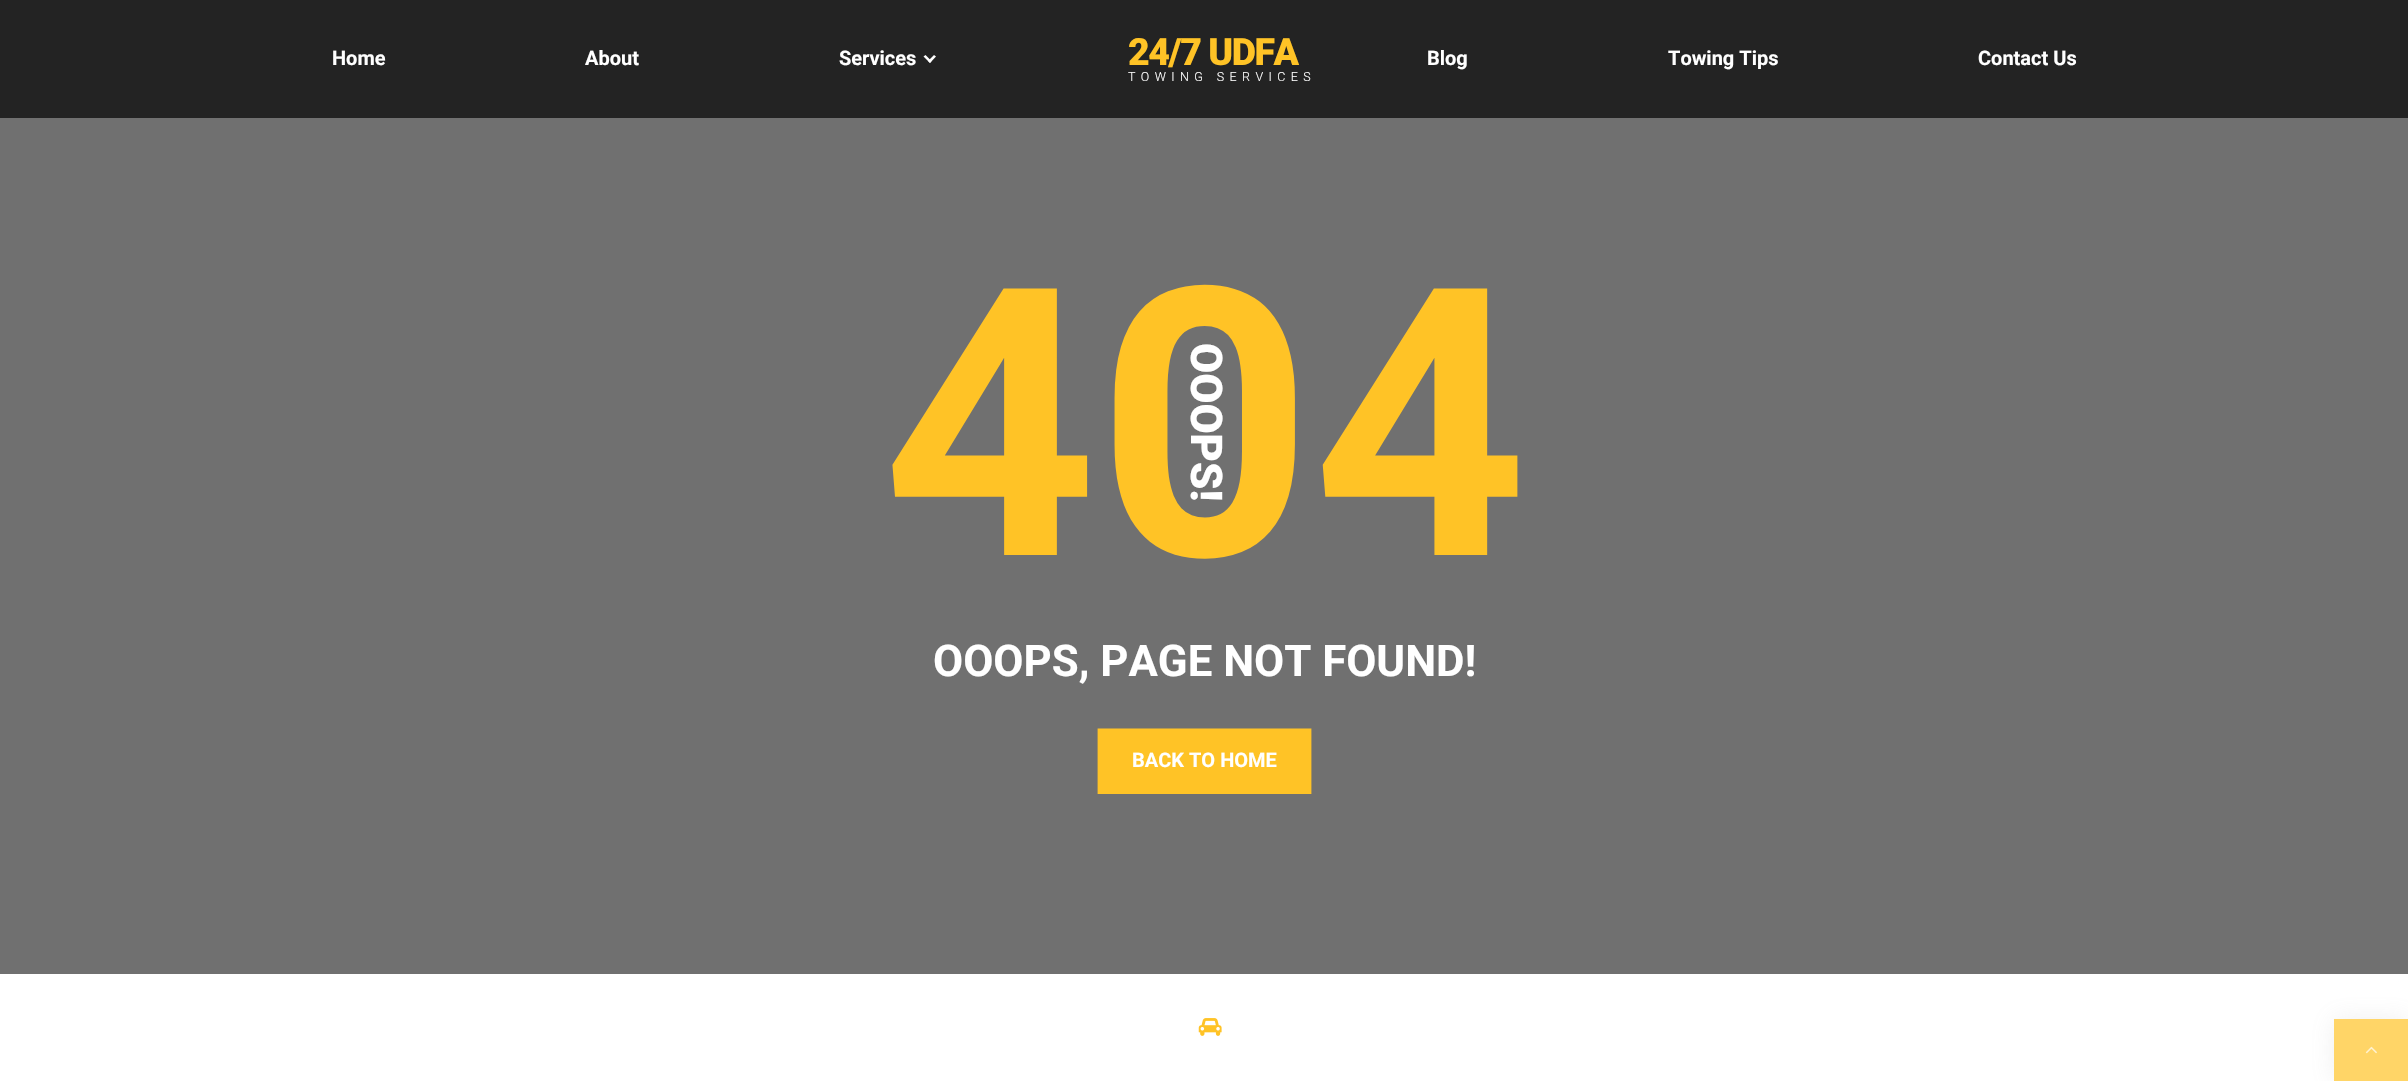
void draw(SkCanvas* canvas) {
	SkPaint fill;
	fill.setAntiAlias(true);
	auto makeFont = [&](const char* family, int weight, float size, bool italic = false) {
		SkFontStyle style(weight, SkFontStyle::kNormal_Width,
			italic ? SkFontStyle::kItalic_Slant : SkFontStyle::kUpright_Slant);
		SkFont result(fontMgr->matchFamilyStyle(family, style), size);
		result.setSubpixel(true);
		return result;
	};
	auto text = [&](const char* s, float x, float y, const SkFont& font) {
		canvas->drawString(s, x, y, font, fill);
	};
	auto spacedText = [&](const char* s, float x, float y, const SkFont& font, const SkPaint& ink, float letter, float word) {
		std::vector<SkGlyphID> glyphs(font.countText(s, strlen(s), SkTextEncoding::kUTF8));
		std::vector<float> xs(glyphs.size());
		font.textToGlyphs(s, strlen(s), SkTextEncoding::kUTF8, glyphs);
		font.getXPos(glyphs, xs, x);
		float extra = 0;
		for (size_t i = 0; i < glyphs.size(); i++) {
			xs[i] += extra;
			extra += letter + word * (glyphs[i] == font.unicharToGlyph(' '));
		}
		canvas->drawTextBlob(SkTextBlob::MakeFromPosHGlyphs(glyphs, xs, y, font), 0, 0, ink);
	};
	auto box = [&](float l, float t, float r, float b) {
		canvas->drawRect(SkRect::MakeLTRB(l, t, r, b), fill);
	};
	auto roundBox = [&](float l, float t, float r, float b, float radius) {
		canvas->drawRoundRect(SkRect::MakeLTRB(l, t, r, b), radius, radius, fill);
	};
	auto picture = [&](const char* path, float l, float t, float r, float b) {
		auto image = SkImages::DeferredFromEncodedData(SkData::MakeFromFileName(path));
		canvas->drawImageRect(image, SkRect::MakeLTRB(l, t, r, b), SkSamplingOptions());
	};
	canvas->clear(0xFFFFFFFF);
	fill.setColor(0xFF232323);
	box(0, 0, 2408, 118);
	fill.setColor(0xFFFFFFFF);
	canvas->drawPath(SkPathBuilder().moveTo(936, 56.5f).lineTo(930, 63).lineTo(928, 61).lineTo(934, 55).close().detach(), fill);
	canvas->drawPath(SkPathBuilder().moveTo(931.5f, 61).lineTo(930, 63).lineTo(923.5f, 56.5f).lineTo(925.5f, 55).close().detach(), fill);
	fill.setColor(0xFF707070);
	box(0, 118, 2408, 974);
	fill.setColor(0xFFFFC326);
	roundBox(1098, 729, 1311, 794, 1);
	fill.setStyle(SkPaint::kStroke_Style);
	fill.setStrokeWidth(3.8f);
	canvas->drawPath(SkPathBuilder().moveTo(1099.5f, 730.5f).lineTo(1309.5f, 730.5f).lineTo(1309.5f, 792).lineTo(1099.5f, 792).close().detach(), fill);
	picture("image0.png", 1198, 1018, 1222, 1036);
	fill.setStyle(SkPaint::kFill_Style);
	fill.setColor(0x26939393);
	fill.setMaskFilter(SkMaskFilter::MakeBlur(kNormal_SkBlurStyle, 12.5f));
	canvas->drawRect(SkRect::MakeLTRB(2334, 1019, 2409, 1081), fill);
	fill.setMaskFilter(nullptr);
	fill.setColor(0xFFFFD567);
	box(2334, 1019, 2408, 1081);
	picture("image1.png", 2365, 1046, 2377, 1054);
	auto font1 = makeFont("Roboto", 900, 37.5f);
	fill.setColor(0xFFFFC326);
	spacedText("24/7 UDFA", 1128, 65, font1, fill, -1.5f, 0);
	auto font2 = makeFont("Roboto", 300, 12.5f);
	fill.setColor(0xFFFFFFFF);
	spacedText("TOWING SERVICES", 1128, 81, font2, fill, 5.4f, 0);
	auto font3 = makeFont("Roboto", 700, 20);
	text("Home", 332, 65, font3);
	text("About", 585, 65, font3);
	text("Services", 839, 65, font3);
	text("Blog", 1427, 65, font3);
	text("Towing Tips", 1668, 65, font3);
	text("Contact Us", 1978, 65, font3);
	auto font4 = makeFont("Roboto", 700, 375);
	fill.setColor(0xFFFFC326);
	text("404", 882, 555, font4);
	auto font5 = makeFont("Roboto", 900, 43.75f);
	fill.setColor(0xFFFFFFFF);
	canvas->save();
	canvas->rotate(90, 1191, 343);
	text("OOOPS!", 1191, 343, font5);
	canvas->restore();
	auto font6 = makeFont("Roboto", 700, 43.75f);
	text("OOOPS, PAGE NOT FOUND!", 933, 676, font6);
	text("BACK TO HOME", 1132, 767, font3);
}
